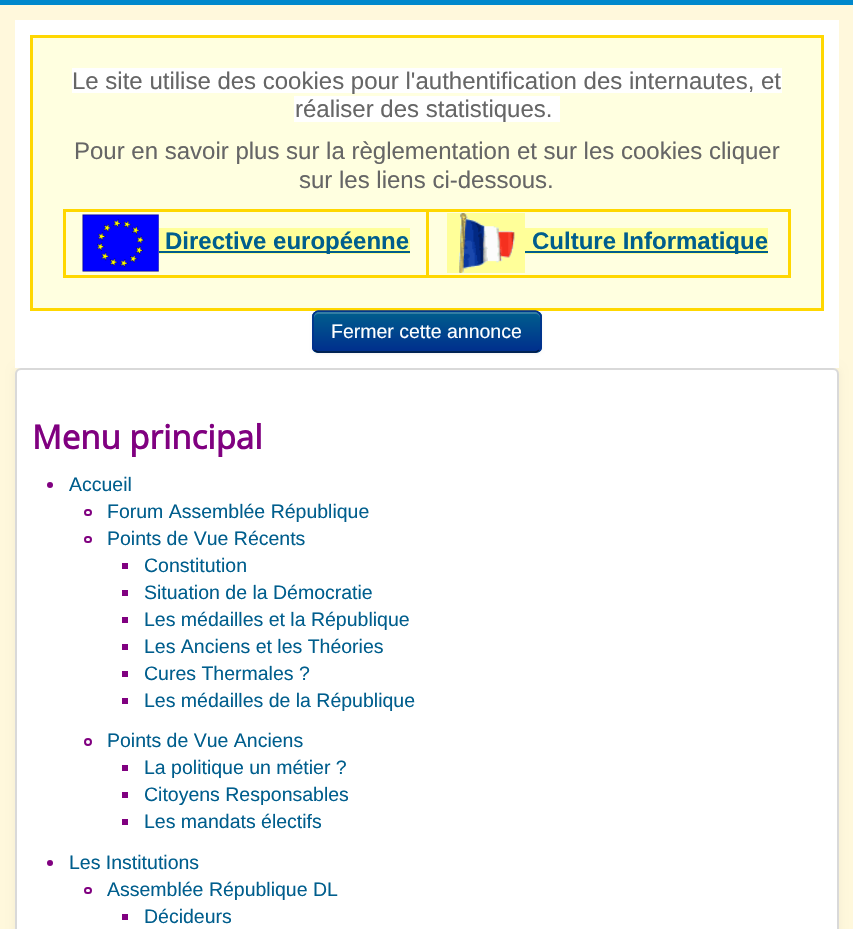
void draw(SkCanvas* canvas) {
	SkPaint fill;
	fill.setAntiAlias(true);
	auto makeFont = [&](const char* family, int weight, float size, bool italic = false) {
		SkFontStyle style(weight, SkFontStyle::kNormal_Width,
			italic ? SkFontStyle::kItalic_Slant : SkFontStyle::kUpright_Slant);
		SkFont result(fontMgr->matchFamilyStyle(family, style), size);
		result.setSubpixel(true);
		return result;
	};
	auto text = [&](const char* s, float x, float y, const SkFont& font) {
		canvas->drawString(s, x, y, font, fill);
	};
	auto box = [&](float l, float t, float r, float b) {
		canvas->drawRect(SkRect::MakeLTRB(l, t, r, b), fill);
	};
	auto roundBox = [&](float l, float t, float r, float b, float radius) {
		canvas->drawRoundRect(SkRect::MakeLTRB(l, t, r, b), radius, radius, fill);
	};
	auto picture = [&](const char* path, float l, float t, float r, float b) {
		auto image = SkImages::DeferredFromEncodedData(SkData::MakeFromFileName(path));
		canvas->drawImageRect(image, SkRect::MakeLTRB(l, t, r, b), SkSamplingOptions());
	};
	canvas->clear(0xFFFFF8DC);
	fill.setColor(0xFF0088CC);
	box(0, 0, 853, 5);
	fill.setColor(0x0D000000);
	fill.setMaskFilter(SkMaskFilter::MakeBlur(kNormal_SkBlurStyle, 4.5f));
	canvas->drawRoundRect(SkRect::MakeLTRB(15, 368, 839, 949), 6, 6, fill);
	fill.setMaskFilter(nullptr);
	fill.setColor(0xFFFFFFFF);
	box(15, 20, 839, 368);
	fill.setColor(0xFFFFFFE0);
	box(33, 38, 821, 308);
	fill.setColor(0xFFFFD700);
	box(30, 35, 824, 38);
	box(821, 35, 824, 311);
	box(30, 308, 824, 311);
	box(30, 35, 33, 311);
	fill.setColor(0xFFFFFFFF);
	box(72, 68, 782, 93);
	box(294, 96, 560, 122);
	fill.setColor(0xFFFFD700);
	box(426, 209, 791, 212);
	box(788, 209, 791, 278);
	box(426, 275, 791, 278);
	box(426, 209, 429, 278);
	box(63, 209, 429, 212);
	box(63, 275, 429, 278);
	box(63, 209, 66, 278);
	fill.setColor(0xFFFFFF99);
	box(83, 271, 159, 272);
	picture("image0.png", 82, 214, 159, 272);
	box(159, 228, 410, 254);
	fill.setColor(0xFF005E8D);
	box(159, 251, 410, 253);
	fill.setColor(0xFFFFFF99);
	box(447, 213, 525, 273);
	picture("image1.png", 459, 213, 515, 273);
	box(525, 228, 768, 254);
	fill.setColor(0xFF005E8D);
	box(525, 251, 768, 253);
	fill.setColor(0x0D000000);
	fill.setMaskFilter(SkMaskFilter::MakeBlur(kNormal_SkBlurStyle, 1.5f));
	canvas->drawRoundRect(SkRect::MakeLTRB(312, 312, 542, 354), 6, 6, fill);
	fill.setMaskFilter(nullptr);
	fill.setColor(0xFF004B8D);
	roundBox(312, 311, 542, 353, 6);
	canvas->save();
	canvas->clipPath(SkPathBuilder().moveTo(318, 311).lineTo(536, 311).cubicTo(539.5f, 311, 542, 313.5f, 542, 317).lineTo(542, 347).cubicTo(542, 350.5f, 539.5f, 353, 536, 353).lineTo(318, 353).cubicTo(314.5f, 353, 312, 350.5f, 312, 347).lineTo(312, 317).cubicTo(312, 313.5f, 314.5f, 311, 318, 311).close().detach(), true);
	{
		const SkColor colors[] = {0xFF005E8D, 0xFF002F8D};
		const float stops[] = {0, 1};
		const SkPoint ends[] = {{427, 312}, {427, 351}};
		fill.setShader(SkGradientShader::MakeLinear(ends, colors, stops, 2, SkTileMode::kClamp));
		fill.setAlpha(255);
	}
	box(312, 312, 542, 351);
	canvas->restore();
	fill.setShader(nullptr);
	fill.setColor(0x33FFFFFF);
	canvas->drawPath(SkPathBuilder().moveTo(318, 314).lineTo(536, 314).cubicTo(538, 314, 540, 316, 540, 318).lineTo(540, 317).cubicTo(540, 314, 538, 312, 535, 312).lineTo(319, 312).cubicTo(316, 312, 314, 314, 314, 317).lineTo(314, 318).cubicTo(314, 316, 316, 314, 318, 314).close().detach(), fill);
	fill.setStyle(SkPaint::kStroke_Style);
	fill.setStrokeWidth(1.5f);
	fill.setColor(0xFF001641);
	canvas->drawPath(SkPathBuilder().moveTo(539, 350).cubicTo(538, 351, 537, 352, 535.5f, 352).lineTo(318, 352).cubicTo(316.5f, 352, 315.5f, 351, 314.5f, 350).detach(), fill);
	fill.setColor(0xFF002F8D);
	canvas->drawPath(SkPathBuilder().moveTo(314.5f, 350).cubicTo(313.5f, 349, 313, 348, 313, 346.5f).lineTo(313, 316.5f).cubicTo(313, 315, 313.5f, 314, 314.5f, 313).cubicTo(315.5f, 312, 316.5f, 311, 318, 311).lineTo(535.5f, 311).cubicTo(537, 311, 538, 312, 539, 313).cubicTo(540, 314, 541, 315, 541, 316.5f).lineTo(541, 346.5f).cubicTo(541, 348, 540, 349, 539, 350).detach(), fill);
	fill.setStyle(SkPaint::kFill_Style);
	fill.setColor(0xFFFFFFFF);
	roundBox(15, 368, 839, 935, 6);
	fill.setStyle(SkPaint::kStroke_Style);
	fill.setStrokeWidth(2);
	fill.setColor(0x26000000);
	canvas->drawRoundRect(SkRect::MakeLTRB(16, 369, 838, 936), 5, 5, fill);
	fill.setStyle(SkPaint::kFill_Style);
	fill.setColor(0xFF800080);
	canvas->drawCircle(50, 485, 3, fill);
	fill.setStyle(SkPaint::kStroke_Style);
	canvas->drawRoundRect(SkRect::MakeLTRB(85, 510, 91, 515), 2.5f, 2.5f, fill);
	canvas->drawRoundRect(SkRect::MakeLTRB(85, 537, 91, 542), 2.5f, 2.5f, fill);
	fill.setStyle(SkPaint::kFill_Style);
	box(122, 563, 128, 569);
	box(122, 590, 128, 596);
	box(122, 617, 128, 623);
	box(122, 644, 128, 650);
	box(122, 671, 128, 677);
	box(122, 698, 128, 704);
	fill.setStyle(SkPaint::kStroke_Style);
	canvas->drawCircle(88, 742, 3, fill);
	fill.setStyle(SkPaint::kFill_Style);
	box(122, 765, 128, 771);
	box(122, 792, 128, 798);
	box(122, 819, 128, 825);
	canvas->drawCircle(50, 863, 3, fill);
	fill.setStyle(SkPaint::kStroke_Style);
	canvas->drawRoundRect(SkRect::MakeLTRB(85, 888, 91, 893), 2.5f, 2.5f, fill);
	fill.setStyle(SkPaint::kFill_Style);
	box(122, 914, 128, 920);
	auto font1 = makeFont("Liberation Sans", 400, 24);
	fill.setColor(0xFF666666);
	text("Le site utilise des cookies pour l'authentification des internautes, et", 72, 89, font1);
	text("réaliser des statistiques.", 295, 117, font1);
	text("Pour en savoir plus sur la règlementation et sur les cookies cliquer", 74, 159, font1);
	text("sur les liens ci-dessous.", 299, 188, font1);
	auto font2 = makeFont("Liberation Sans", 700, 24);
	fill.setColor(0xFF005E8D);
	text("Directive européenne", 165, 249, font2);
	text("Culture Informatique", 532, 249, font2);
	auto font3 = makeFont("Liberation Sans", 400, 19.5f);
	fill.setColor(0xFFFFFFFF);
	text("Fermer cette annonce", 331, 338, font3);
	auto font4 = makeFont("Open Sans", 700, 33);
	fill.setColor(0xFF800080);
	text("Menu principal", 32, 449, font4);
	fill.setColor(0xFF005E8D);
	text("Accueil", 69, 491, font3);
	text("Forum Assemblée République", 107, 518, font3);
	text("Points de Vue Récents", 107, 545, font3);
	text("Constitution", 144, 572, font3);
	text("Situation de la Démocratie", 144, 599, font3);
	text("Les médailles et la République", 144, 626, font3);
	text("Les Anciens et les Théories", 144, 653, font3);
	text("Cures Thermales ?", 144, 680, font3);
	text("Les médailles de la République", 144, 707, font3);
	text("Points de Vue Anciens", 107, 747, font3);
	text("La politique un métier ?", 144, 774, font3);
	text("Citoyens Responsables", 144, 801, font3);
	text("Les mandats électifs", 144, 828, font3);
	text("Les Institutions", 69, 869, font3);
	text("Assemblée République DL", 107, 896, font3);
	text("Décideurs", 144, 923, font3);
}
